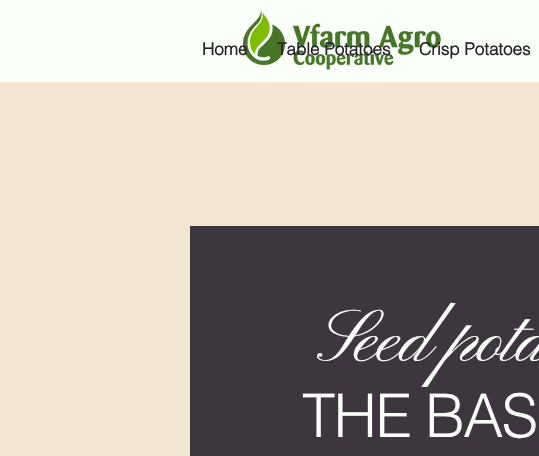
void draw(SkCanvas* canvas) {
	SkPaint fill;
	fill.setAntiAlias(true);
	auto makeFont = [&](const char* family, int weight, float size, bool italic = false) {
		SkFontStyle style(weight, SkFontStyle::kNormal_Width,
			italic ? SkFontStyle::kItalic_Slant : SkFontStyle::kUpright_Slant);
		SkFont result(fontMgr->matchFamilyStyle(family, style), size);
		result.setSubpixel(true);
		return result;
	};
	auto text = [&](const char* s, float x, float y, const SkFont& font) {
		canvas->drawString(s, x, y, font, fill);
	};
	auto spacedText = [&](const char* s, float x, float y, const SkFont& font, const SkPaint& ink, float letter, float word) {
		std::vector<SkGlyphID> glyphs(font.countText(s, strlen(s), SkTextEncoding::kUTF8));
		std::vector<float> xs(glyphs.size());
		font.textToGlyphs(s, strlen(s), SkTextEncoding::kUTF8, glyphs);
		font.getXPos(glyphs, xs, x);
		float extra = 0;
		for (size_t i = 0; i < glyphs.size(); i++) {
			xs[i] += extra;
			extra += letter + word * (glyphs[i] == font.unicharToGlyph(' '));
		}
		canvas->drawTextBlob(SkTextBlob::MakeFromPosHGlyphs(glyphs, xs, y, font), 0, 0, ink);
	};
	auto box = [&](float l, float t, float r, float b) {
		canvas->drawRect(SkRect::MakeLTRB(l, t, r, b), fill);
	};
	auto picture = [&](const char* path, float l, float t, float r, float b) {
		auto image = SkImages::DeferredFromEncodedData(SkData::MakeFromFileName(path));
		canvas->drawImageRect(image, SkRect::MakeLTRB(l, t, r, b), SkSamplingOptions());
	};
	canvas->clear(0xFFFBFFFA);
	picture("image0.png", 243, 10, 441, 70);
	fill.setColor(0xFFF3E6D2);
	box(0, 82, 539, 456);
	fill.setColor(0xFF3E363F);
	box(190, 226, 539, 456);
	auto font1 = makeFont("helvetica", 700, 17);
	fill.setColor(0xFF272228);
	text("Home", 202, 55, font1);
	text("Table Potatoes", 277, 55, font1);
	text("Crisp Potatoes", 419, 55, font1);
	auto font2 = makeFont("Pinyon Script", 400, 75);
	fill.setColor(0xFFFBFFFA);
	spacedText("Seed pota", 317, 361, font2, fill, -1.75f, 0);
	auto font3 = makeFont("helvetica", 300, 60);
	spacedText("THE BAS", 302, 437, font3, fill, -1.75f, 0);
}
